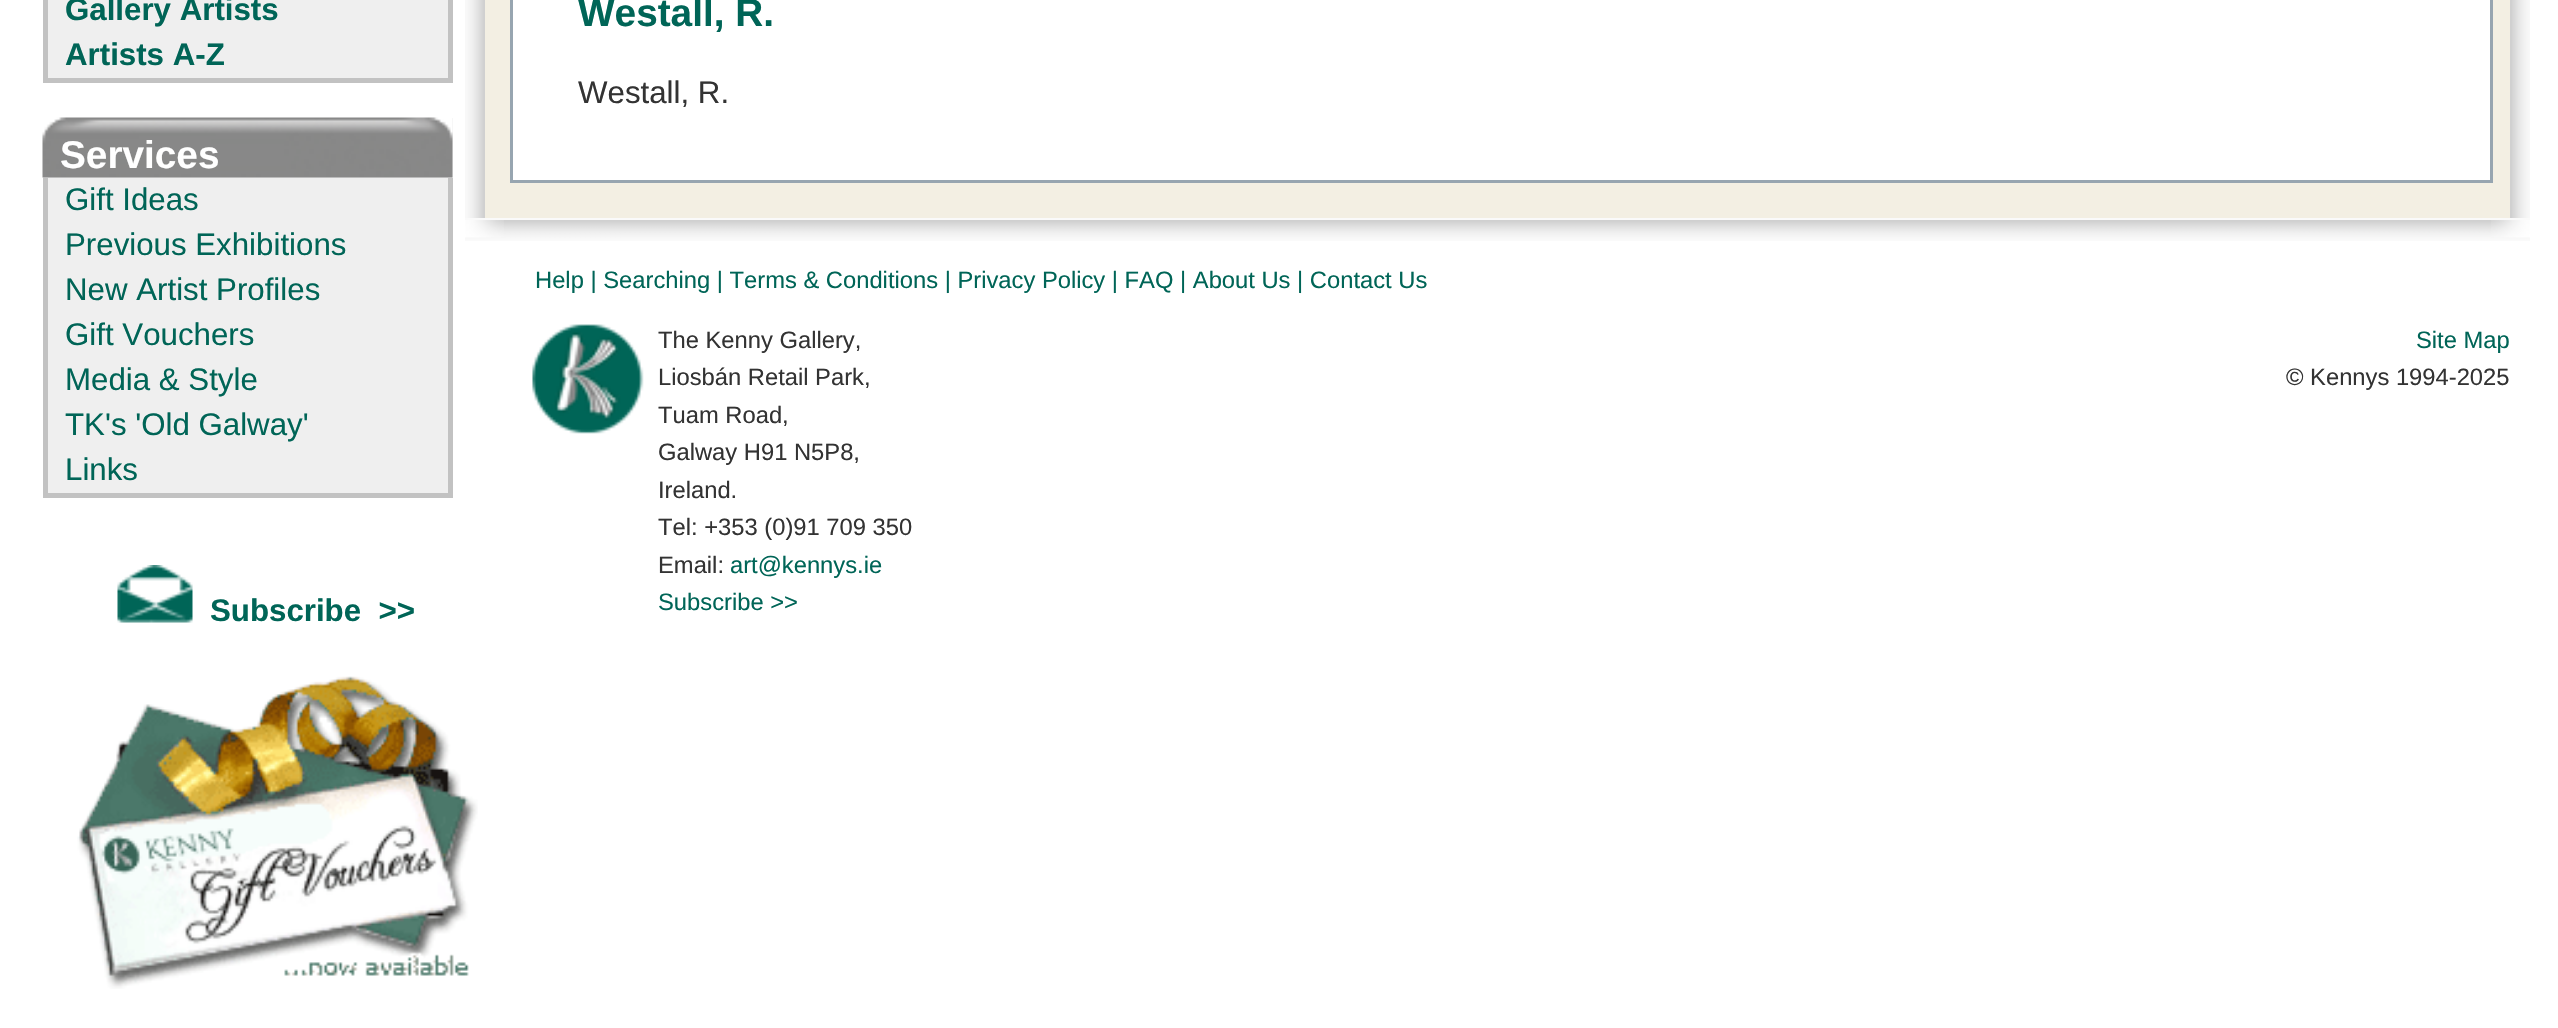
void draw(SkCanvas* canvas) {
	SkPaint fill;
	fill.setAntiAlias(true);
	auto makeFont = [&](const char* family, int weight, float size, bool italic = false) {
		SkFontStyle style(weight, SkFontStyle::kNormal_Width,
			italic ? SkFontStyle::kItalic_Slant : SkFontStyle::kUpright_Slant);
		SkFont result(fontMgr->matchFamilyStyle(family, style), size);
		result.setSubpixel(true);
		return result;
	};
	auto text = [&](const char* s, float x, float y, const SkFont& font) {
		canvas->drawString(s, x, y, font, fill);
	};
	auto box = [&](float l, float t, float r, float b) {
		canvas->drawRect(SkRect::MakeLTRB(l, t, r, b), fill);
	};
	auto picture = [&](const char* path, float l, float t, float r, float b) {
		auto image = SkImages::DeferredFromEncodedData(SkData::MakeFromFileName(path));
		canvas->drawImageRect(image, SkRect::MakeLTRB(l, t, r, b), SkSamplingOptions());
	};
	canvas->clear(0xFFFFFFFF);
	fill.setColor(0xFFEFEFEF);
	box(48, 0, 448, 78);
	fill.setColor(0xFFC2C2C2);
	box(43, 78, 453, 83);
	box(451, 0, 453, 78);
	box(43, 0, 45, 78);
	box(448, 0, 451, 78);
	box(45, 0, 48, 78);
	fill.setColor(0xFFEFEFEF);
	box(43, 118, 453, 493);
	fill.setColor(0xFFC2C2C2);
	box(43, 493, 453, 498);
	picture("image0.png", 42, 117, 453, 178);
	box(451, 178, 453, 493);
	box(43, 178, 45, 493);
	box(448, 178, 451, 493);
	box(45, 178, 48, 493);
	picture("image1.png", 117, 565, 193, 623);
	picture("image2.png", 77, 676, 478, 989);
	fill.setColor(0xFFF3EFE3);
	box(485, 0, 2510, 218);
	picture("image3.png", 465, 0, 485, 218);
	picture("image4.png", 2510, 0, 2530, 218);
	fill.setColor(0xFFFAFAFA);
	box(465, 218, 2530, 220);
	fill.setColor(0xFFFFFFFF);
	canvas->drawRect(SkRect::MakeLTRB(511.5f, -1.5f, 2491.5f, 181.5f), fill);
	fill.setStyle(SkPaint::kStroke_Style);
	fill.setStrokeWidth(3);
	fill.setColor(0xFF97A5B0);
	canvas->drawRect(SkRect::MakeLTRB(511.5f, -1.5f, 2491.5f, 181.5f), fill);
	picture("image5.png", 465, 220, 2530, 241);
	picture("image6.png", 465, 220, 504, 238);
	picture("image7.png", 2491, 220, 2530, 238);
	picture("image8.png", 532, 324, 644, 434);
	auto font1 = makeFont("Liberation Sans", 700, 31.25f);
	fill.setStyle(SkPaint::kFill_Style);
	fill.setColor(0xFF006557);
	text("Gallery Artists", 65, 20, font1);
	text("Artists A-Z", 65, 65, font1);
	auto font2 = makeFont("Liberation Sans", 700, 38.75f);
	fill.setColor(0xFFFFFFFF);
	text("Services", 60, 168, font2);
	auto font3 = makeFont("Liberation Sans", 400, 31.25f);
	fill.setColor(0xFF006557);
	text("Gift Ideas", 65, 210, font3);
	text("Previous Exhibitions", 65, 255, font3);
	text("New Artist Profiles", 65, 300, font3);
	text("Gift Vouchers", 65, 345, font3);
	text("Media & Style", 65, 390, font3);
	text("TK's 'Old Galway'", 65, 435, font3);
	text("Links", 65, 480, font3);
	text("Subscribe  >>", 210, 621, font1);
	text("Westall, R.", 578, 26, font2);
	fill.setColor(0xFF333333);
	text("Westall, R.", 578, 103, font3);
	auto font4 = makeFont("Liberation Sans", 400, 23.75f);
	fill.setColor(0xFF006557);
	text("Help | Searching | Terms & Conditions | Privacy Policy | FAQ | About Us | Contact Us", 535, 288, font4);
	fill.setColor(0xFF333333);
	text("The Kenny Gallery,", 658, 348, font4);
	text("Liosbán Retail Park,", 658, 385, font4);
	text("Tuam Road,", 658, 423, font4);
	text("Galway H91 N5P8,", 658, 460, font4);
	text("Ireland.", 658, 498, font4);
	text("Tel: +353 (0)91 709 350", 658, 535, font4);
	text("Email:", 658, 573, font4);
	fill.setColor(0xFF006557);
	text("art@kennys.ie", 730, 573, font4);
	text("Subscribe >>", 658, 610, font4);
	text("Site Map", 2416, 348, font4);
	fill.setColor(0xFF333333);
	text("© Kennys 1994-2025", 2286, 385, font4);
}
